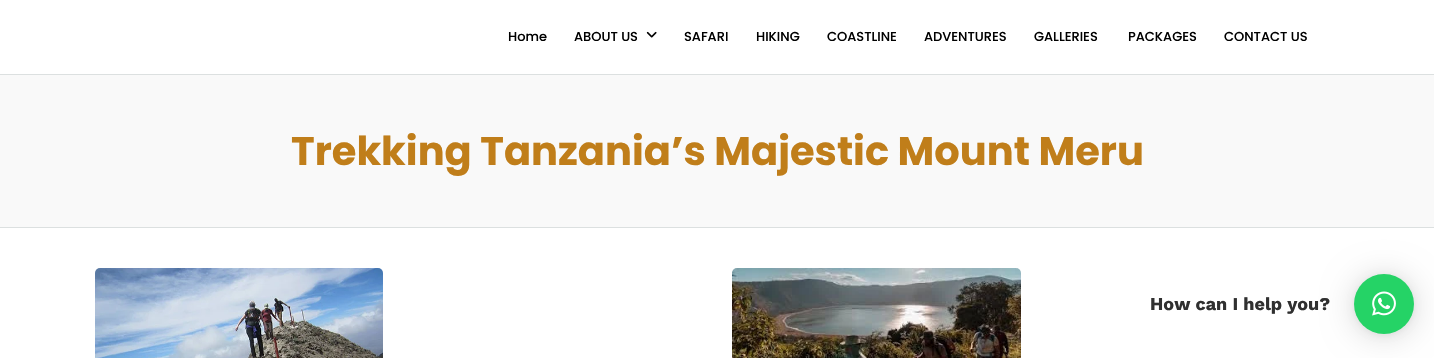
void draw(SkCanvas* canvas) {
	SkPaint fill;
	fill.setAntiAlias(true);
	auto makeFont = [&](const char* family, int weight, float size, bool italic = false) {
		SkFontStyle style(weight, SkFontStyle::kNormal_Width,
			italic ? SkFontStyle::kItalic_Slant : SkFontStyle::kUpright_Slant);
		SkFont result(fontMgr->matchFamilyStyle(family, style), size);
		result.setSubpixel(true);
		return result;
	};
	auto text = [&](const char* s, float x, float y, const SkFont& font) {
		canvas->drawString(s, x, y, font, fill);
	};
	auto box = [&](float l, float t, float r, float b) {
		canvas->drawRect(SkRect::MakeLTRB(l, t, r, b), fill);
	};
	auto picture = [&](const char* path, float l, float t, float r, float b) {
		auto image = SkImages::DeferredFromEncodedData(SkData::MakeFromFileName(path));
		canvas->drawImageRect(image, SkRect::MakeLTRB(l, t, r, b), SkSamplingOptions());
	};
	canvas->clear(0xFFFFFFFF);
	fill.setColor(0xFFDCE0E0);
	box(0, 74, 1434, 75);
	picture("image0.png", 646, 31, 657, 38);
	fill.setColor(0xFFF9F9F9);
	box(0, 75, 1434, 227);
	fill.setColor(0xFFDCE0E0);
	box(0, 227, 1434, 228);
	picture("image1.png", 95, 268, 383, 358);
	picture("image2.png", 732, 268, 1021, 358);
	fill.setColor(0x29000000);
	fill.setMaskFilter(SkMaskFilter::MakeBlur(kNormal_SkBlurStyle, 16));
	canvas->drawRoundRect(SkRect::MakeLTRB(1354, 276, 1414, 336), 30, 30, fill);
	fill.setMaskFilter(nullptr);
	fill.setColor(0x0F000000);
	fill.setMaskFilter(SkMaskFilter::MakeBlur(kNormal_SkBlurStyle, 3));
	canvas->drawRoundRect(SkRect::MakeLTRB(1354, 275, 1414, 335), 30, 30, fill);
	fill.setMaskFilter(nullptr);
	fill.setColor(0xFF25D366);
	canvas->drawCircle(1384, 304, 30, fill);
	picture("image3.png", 1372, 291, 1396, 316);
	auto font1 = makeFont("Poppins", 500, 13);
	fill.setColor(0xFF000000);
	text("Home", 508, 41, font1);
	text("ABOUT US", 574, 41, font1);
	text("SAFARI", 684, 41, font1);
	text("HIKING", 756, 41, font1);
	text("COASTLINE", 827, 41, font1);
	text("ADVENTURES", 924, 41, font1);
	text("GALLERIES", 1034, 41, font1);
	text("PACKAGES", 1128, 41, font1);
	text("CONTACT US", 1224, 41, font1);
	auto font2 = makeFont("Poppins", 700, 40);
	fill.setColor(0xFFC07E1A);
	text("Trekking Tanzania’s Majestic Mount Meru", 291, 165, font2);
	auto font3 = makeFont("Work Sans", 700, 18);
	fill.setColor(0xFF303030);
	text("How can I help you?", 1150, 310, font3);
}
